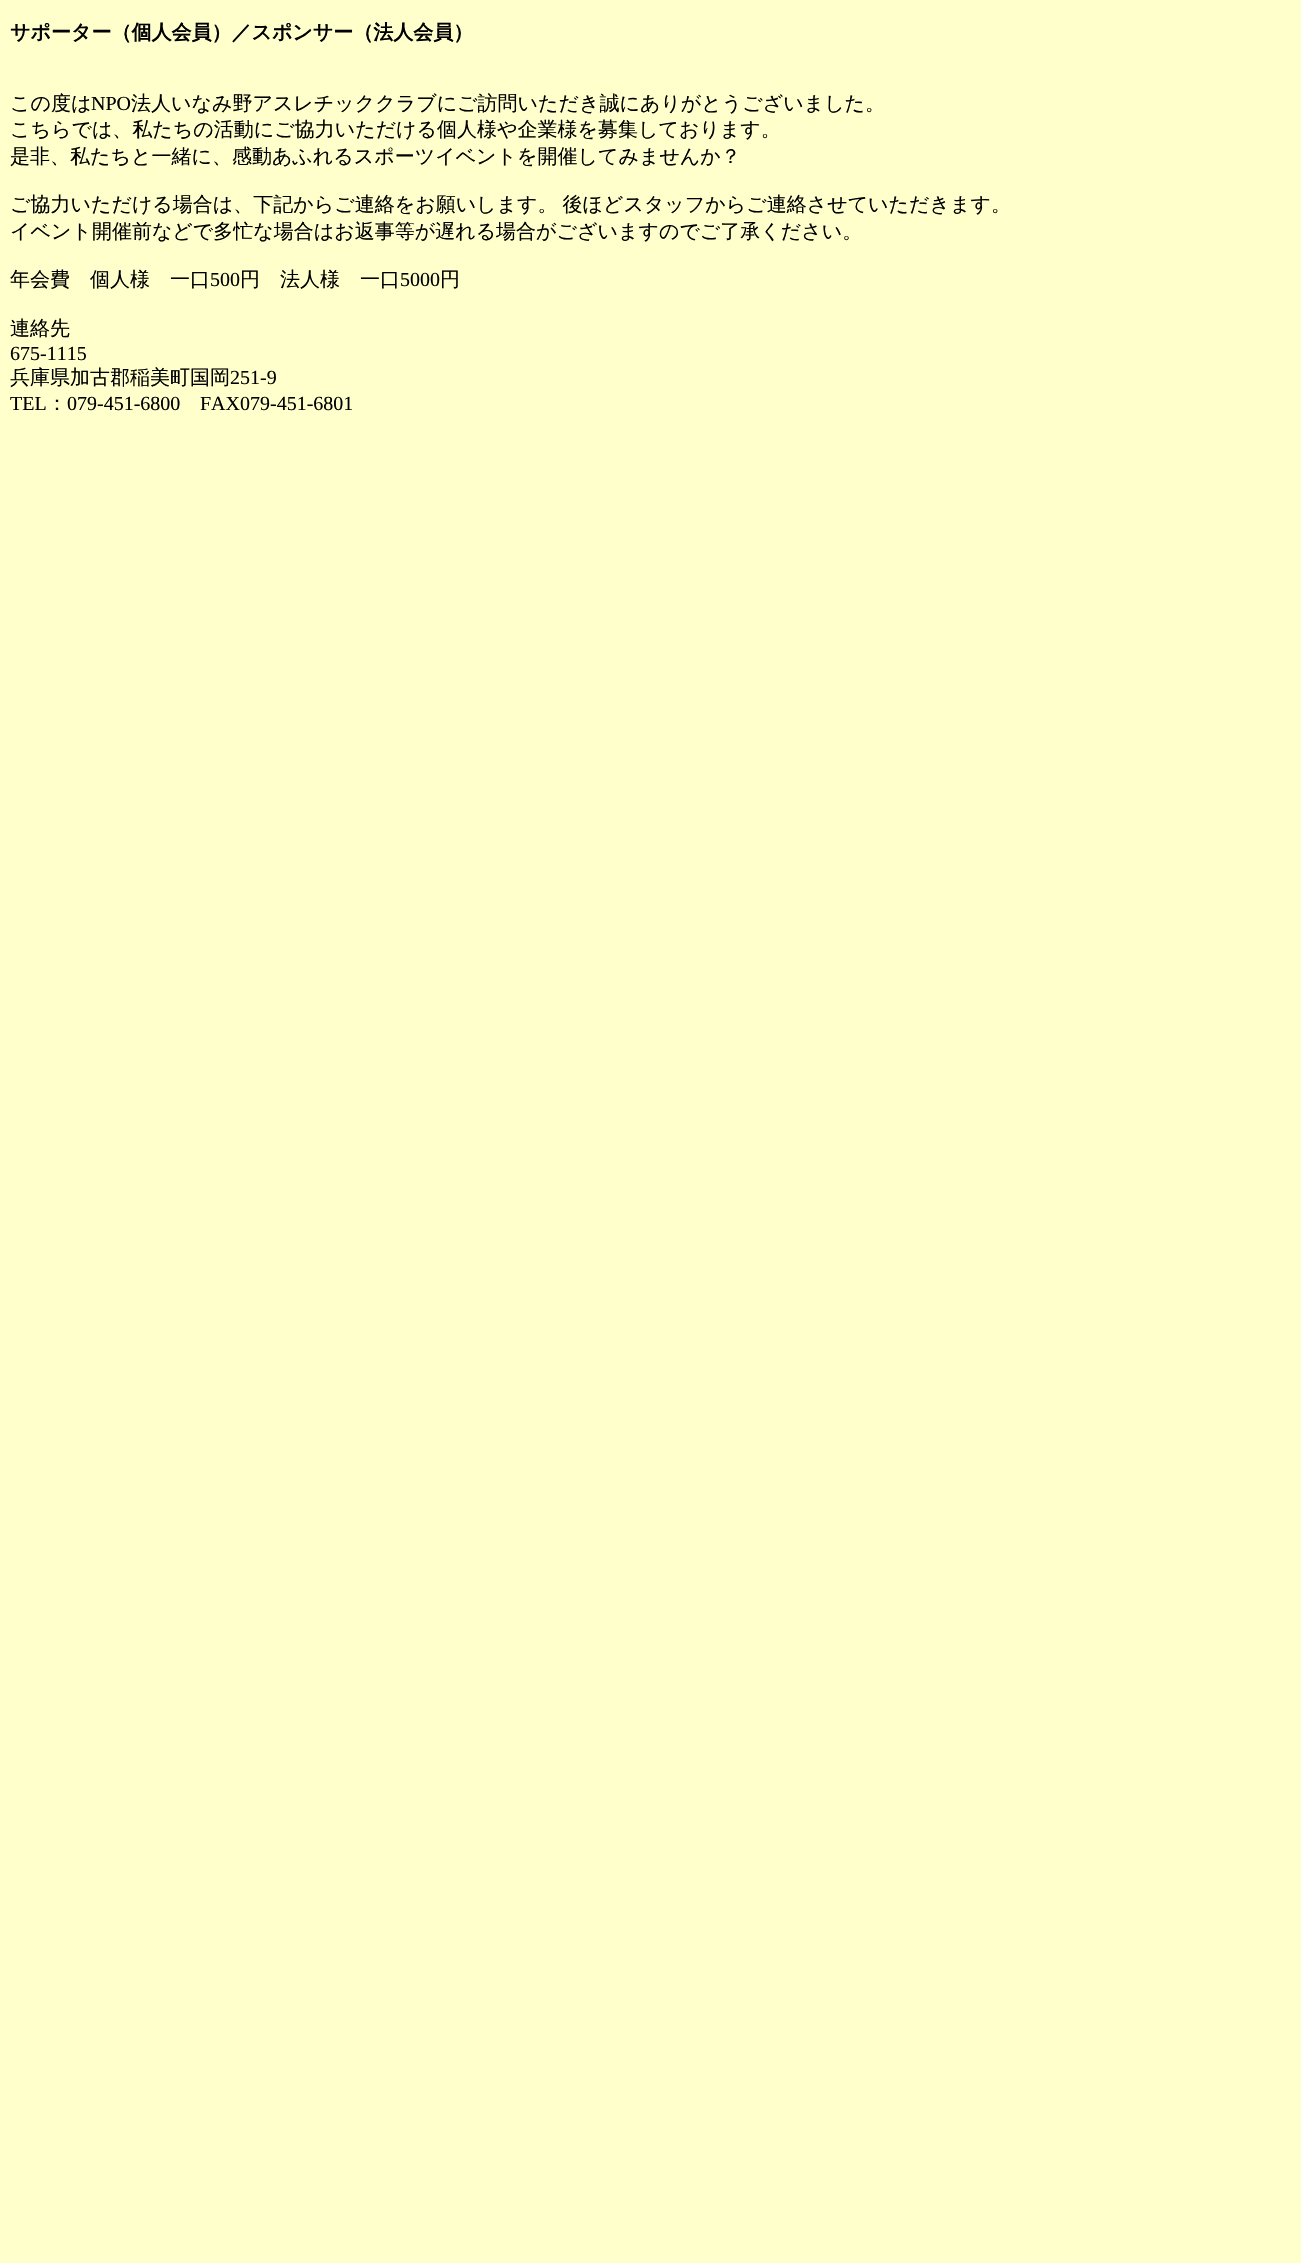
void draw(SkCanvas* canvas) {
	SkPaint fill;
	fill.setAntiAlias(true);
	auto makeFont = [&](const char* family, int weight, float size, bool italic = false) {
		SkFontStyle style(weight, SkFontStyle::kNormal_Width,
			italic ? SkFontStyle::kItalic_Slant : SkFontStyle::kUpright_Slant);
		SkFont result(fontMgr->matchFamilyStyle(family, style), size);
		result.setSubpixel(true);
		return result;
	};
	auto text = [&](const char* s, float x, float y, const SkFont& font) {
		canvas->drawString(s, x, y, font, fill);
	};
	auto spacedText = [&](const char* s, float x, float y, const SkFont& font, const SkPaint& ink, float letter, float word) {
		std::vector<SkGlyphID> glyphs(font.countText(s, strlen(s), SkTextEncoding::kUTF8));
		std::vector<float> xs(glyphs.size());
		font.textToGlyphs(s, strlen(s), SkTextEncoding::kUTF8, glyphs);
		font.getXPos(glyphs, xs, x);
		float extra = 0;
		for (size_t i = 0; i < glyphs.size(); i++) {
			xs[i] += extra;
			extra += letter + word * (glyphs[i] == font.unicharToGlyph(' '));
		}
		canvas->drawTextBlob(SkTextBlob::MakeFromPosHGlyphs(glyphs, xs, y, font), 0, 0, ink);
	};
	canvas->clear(0xFFFFFFCC);
	auto font1 = makeFont("WenQuanYi Zen Hei", 700, 20);
	fill.setColor(0xFF000000);
	text("サポーター（個人会員）／スポンサー（法人会員）", 10, 39, font1);
	auto font2 = makeFont("WenQuanYi Zen Hei", 500, 20);
	text("この度は", 10, 110, font2);
	auto font3 = makeFont("Liberation Serif", 400, 20);
	text("NPO", 91, 110, font3);
	text("法人いなみ野アスレチッククラブにご訪問いただき誠にありがとうございました。", 131, 110, font2);
	text("こちらでは、私たちの活動にご協力いただける個人様や企業様を募集しております。", 10, 136, font2);
	text("是非、私たちと一緒に、感動あふれるスポーツイベントを開催してみませんか？", 10, 163, font2);
	spacedText("ご協力いただける場合は、下記からご連絡をお願いします。 後ほどスタッフからご連絡させていただきます。", 10, 211, font2, fill, 0, -1);
	text("イベント開催前などで多忙な場合はお返事等が遅れる場合がございますのでご了承ください。", 10, 238, font2);
	text("年会費　個人様　一口", 10, 286, font2);
	text("500", 210, 286, font3);
	text("円　法人様　一口", 240, 286, font2);
	text("5000", 400, 286, font3);
	text("円", 440, 286, font2);
	text("連絡先", 10, 335, font2);
	text("675-1115", 10, 360, font3);
	text("兵庫県加古郡稲美町国岡", 10, 384, font2);
	text("251-9", 230, 384, font3);
	text("TEL", 10, 410, font3);
	text("：", 47, 410, font2);
	text("079-451-6800", 67, 410, font3);
	text("FAX079-451-6801", 200, 410, font3);
}
